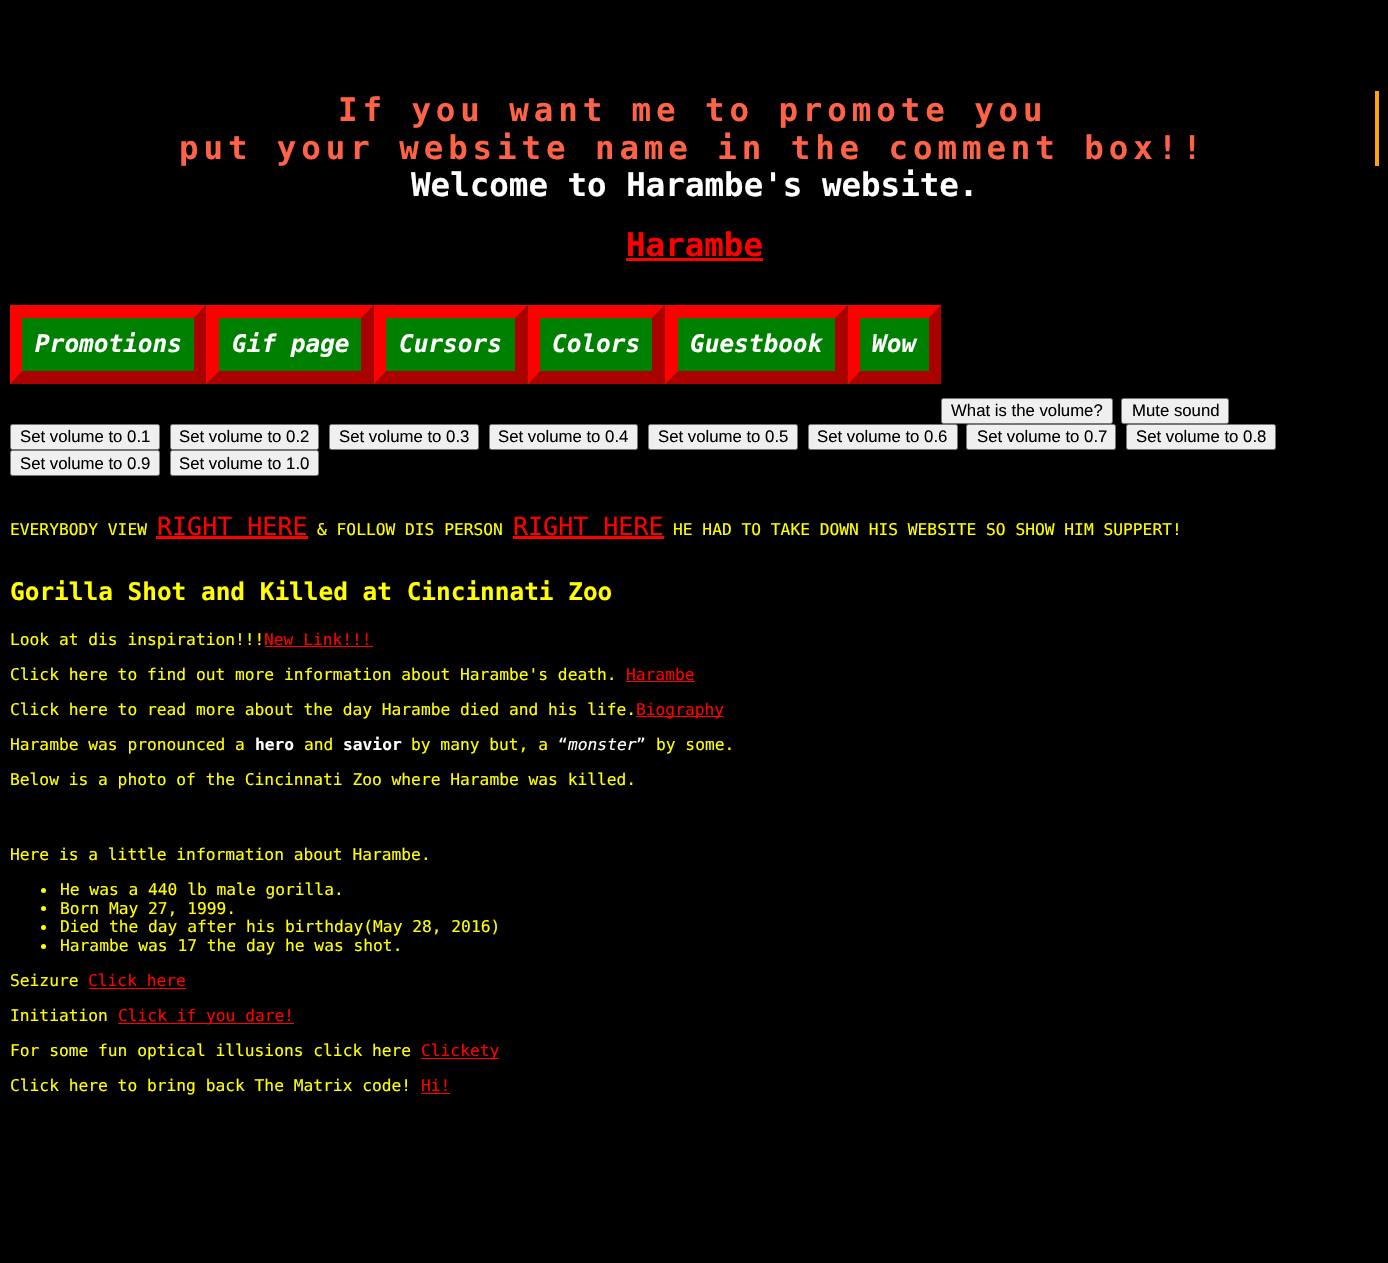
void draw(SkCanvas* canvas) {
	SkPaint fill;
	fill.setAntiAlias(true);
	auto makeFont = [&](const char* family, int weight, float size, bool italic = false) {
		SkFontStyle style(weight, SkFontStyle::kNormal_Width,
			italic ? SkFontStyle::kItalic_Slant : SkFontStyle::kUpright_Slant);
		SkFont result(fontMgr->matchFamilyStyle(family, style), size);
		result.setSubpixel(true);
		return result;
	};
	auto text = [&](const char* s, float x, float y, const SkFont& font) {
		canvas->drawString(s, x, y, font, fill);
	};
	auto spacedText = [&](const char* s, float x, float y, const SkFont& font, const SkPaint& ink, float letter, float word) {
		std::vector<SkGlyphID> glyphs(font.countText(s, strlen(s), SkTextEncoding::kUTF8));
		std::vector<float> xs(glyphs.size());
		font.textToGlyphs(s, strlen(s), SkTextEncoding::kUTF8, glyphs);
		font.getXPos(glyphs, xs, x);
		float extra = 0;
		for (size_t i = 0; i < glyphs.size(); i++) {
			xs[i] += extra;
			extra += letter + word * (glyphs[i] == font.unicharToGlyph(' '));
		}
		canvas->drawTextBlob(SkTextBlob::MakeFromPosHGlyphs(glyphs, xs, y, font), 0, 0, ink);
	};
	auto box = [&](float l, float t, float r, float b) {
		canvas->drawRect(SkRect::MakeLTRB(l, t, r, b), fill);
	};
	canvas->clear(0xFF000000);
	fill.setColor(0xFFFFA500);
	box(1375, 91, 1379, 166);
	fill.setColor(0xFFFF0000);
	box(626, 258, 763, 261);
	fill.setColor(0xFF008000);
	box(10, 305, 941, 384);
	fill.setColor(0xFFFF0000);
	canvas->drawPath(SkPathBuilder().moveTo(10, 305).lineTo(206, 305).lineTo(194, 318).lineTo(22, 318).close().detach(), fill);
	fill.setColor(0xFFAA0000);
	canvas->drawPath(SkPathBuilder().moveTo(206, 305).lineTo(206, 384).lineTo(194, 371).lineTo(194, 318).close().detach(), fill);
	canvas->drawPath(SkPathBuilder().moveTo(206, 384).lineTo(10, 384).lineTo(22, 371).lineTo(194, 371).close().detach(), fill);
	fill.setColor(0xFFFF0000);
	canvas->drawPath(SkPathBuilder().moveTo(10, 384).lineTo(10, 305).lineTo(22, 318).lineTo(22, 371).close().detach(), fill);
	canvas->drawPath(SkPathBuilder().moveTo(206, 305).lineTo(374, 305).lineTo(361, 318).lineTo(219, 318).close().detach(), fill);
	fill.setColor(0xFFAA0000);
	canvas->drawPath(SkPathBuilder().moveTo(374, 305).lineTo(374, 384).lineTo(361, 371).lineTo(361, 318).close().detach(), fill);
	canvas->drawPath(SkPathBuilder().moveTo(374, 384).lineTo(206, 384).lineTo(219, 371).lineTo(361, 371).close().detach(), fill);
	fill.setColor(0xFFFF0000);
	canvas->drawPath(SkPathBuilder().moveTo(206, 384).lineTo(206, 305).lineTo(219, 318).lineTo(219, 371).close().detach(), fill);
	canvas->drawPath(SkPathBuilder().moveTo(374, 305).lineTo(528, 305).lineTo(515, 318).lineTo(386, 318).close().detach(), fill);
	fill.setColor(0xFFAA0000);
	canvas->drawPath(SkPathBuilder().moveTo(528, 305).lineTo(528, 384).lineTo(515, 371).lineTo(515, 318).close().detach(), fill);
	canvas->drawPath(SkPathBuilder().moveTo(528, 384).lineTo(374, 384).lineTo(386, 371).lineTo(515, 371).close().detach(), fill);
	fill.setColor(0xFFFF0000);
	canvas->drawPath(SkPathBuilder().moveTo(374, 384).lineTo(374, 305).lineTo(386, 318).lineTo(386, 371).close().detach(), fill);
	canvas->drawPath(SkPathBuilder().moveTo(528, 305).lineTo(665, 305).lineTo(652, 318).lineTo(540, 318).close().detach(), fill);
	fill.setColor(0xFFAA0000);
	canvas->drawPath(SkPathBuilder().moveTo(665, 305).lineTo(665, 384).lineTo(652, 371).lineTo(652, 318).close().detach(), fill);
	canvas->drawPath(SkPathBuilder().moveTo(665, 384).lineTo(528, 384).lineTo(540, 371).lineTo(652, 371).close().detach(), fill);
	fill.setColor(0xFFFF0000);
	canvas->drawPath(SkPathBuilder().moveTo(528, 384).lineTo(528, 305).lineTo(540, 318).lineTo(540, 371).close().detach(), fill);
	canvas->drawPath(SkPathBuilder().moveTo(665, 305).lineTo(848, 305).lineTo(835, 318).lineTo(678, 318).close().detach(), fill);
	fill.setColor(0xFFAA0000);
	canvas->drawPath(SkPathBuilder().moveTo(848, 305).lineTo(848, 384).lineTo(835, 371).lineTo(835, 318).close().detach(), fill);
	canvas->drawPath(SkPathBuilder().moveTo(848, 384).lineTo(665, 384).lineTo(678, 371).lineTo(835, 371).close().detach(), fill);
	fill.setColor(0xFFFF0000);
	canvas->drawPath(SkPathBuilder().moveTo(665, 384).lineTo(665, 305).lineTo(678, 318).lineTo(678, 371).close().detach(), fill);
	canvas->drawPath(SkPathBuilder().moveTo(848, 305).lineTo(941, 305).lineTo(929, 318).lineTo(860, 318).close().detach(), fill);
	fill.setColor(0xFFAA0000);
	canvas->drawPath(SkPathBuilder().moveTo(941, 305).lineTo(941, 384).lineTo(929, 371).lineTo(929, 318).close().detach(), fill);
	canvas->drawPath(SkPathBuilder().moveTo(941, 384).lineTo(848, 384).lineTo(860, 371).lineTo(929, 371).close().detach(), fill);
	fill.setColor(0xFFFF0000);
	canvas->drawPath(SkPathBuilder().moveTo(848, 384).lineTo(848, 305).lineTo(860, 318).lineTo(860, 371).close().detach(), fill);
	fill.setColor(0xFFEFEFEF);
	canvas->drawRoundRect(SkRect::MakeLTRB(941.5f, 398.5f, 1112.5f, 423.5f), 2, 2, fill);
	fill.setStyle(SkPaint::kStroke_Style);
	fill.setStrokeWidth(1);
	fill.setColor(0xFF767676);
	canvas->drawRoundRect(SkRect::MakeLTRB(941.5f, 398.5f, 1112.5f, 423.5f), 2, 2, fill);
	fill.setStyle(SkPaint::kFill_Style);
	fill.setColor(0xFFEFEFEF);
	canvas->drawRoundRect(SkRect::MakeLTRB(1121.5f, 398.5f, 1228.5f, 423.5f), 2, 2, fill);
	fill.setStyle(SkPaint::kStroke_Style);
	fill.setColor(0xFF767676);
	canvas->drawRoundRect(SkRect::MakeLTRB(1121.5f, 398.5f, 1228.5f, 423.5f), 2, 2, fill);
	fill.setStyle(SkPaint::kFill_Style);
	fill.setColor(0xFFEFEFEF);
	canvas->drawRoundRect(SkRect::MakeLTRB(10.5f, 424.5f, 159.5f, 449.5f), 2, 2, fill);
	fill.setStyle(SkPaint::kStroke_Style);
	fill.setColor(0xFF767676);
	canvas->drawRoundRect(SkRect::MakeLTRB(10.5f, 424.5f, 159.5f, 449.5f), 2, 2, fill);
	fill.setStyle(SkPaint::kFill_Style);
	fill.setColor(0xFFEFEFEF);
	canvas->drawRoundRect(SkRect::MakeLTRB(170.5f, 424.5f, 318.5f, 449.5f), 2, 2, fill);
	fill.setStyle(SkPaint::kStroke_Style);
	fill.setColor(0xFF767676);
	canvas->drawRoundRect(SkRect::MakeLTRB(170.5f, 424.5f, 318.5f, 449.5f), 2, 2, fill);
	fill.setStyle(SkPaint::kFill_Style);
	fill.setColor(0xFFEFEFEF);
	canvas->drawRoundRect(SkRect::MakeLTRB(329.5f, 424.5f, 478.5f, 449.5f), 2, 2, fill);
	fill.setStyle(SkPaint::kStroke_Style);
	fill.setColor(0xFF767676);
	canvas->drawRoundRect(SkRect::MakeLTRB(329.5f, 424.5f, 478.5f, 449.5f), 2, 2, fill);
	fill.setStyle(SkPaint::kFill_Style);
	fill.setColor(0xFFEFEFEF);
	canvas->drawRoundRect(SkRect::MakeLTRB(489.5f, 424.5f, 637.5f, 449.5f), 2, 2, fill);
	fill.setStyle(SkPaint::kStroke_Style);
	fill.setColor(0xFF767676);
	canvas->drawRoundRect(SkRect::MakeLTRB(489.5f, 424.5f, 637.5f, 449.5f), 2, 2, fill);
	fill.setStyle(SkPaint::kFill_Style);
	fill.setColor(0xFFEFEFEF);
	canvas->drawRoundRect(SkRect::MakeLTRB(648.5f, 424.5f, 797.5f, 449.5f), 2, 2, fill);
	fill.setStyle(SkPaint::kStroke_Style);
	fill.setColor(0xFF767676);
	canvas->drawRoundRect(SkRect::MakeLTRB(648.5f, 424.5f, 797.5f, 449.5f), 2, 2, fill);
	fill.setStyle(SkPaint::kFill_Style);
	fill.setColor(0xFFEFEFEF);
	canvas->drawRoundRect(SkRect::MakeLTRB(808.5f, 424.5f, 957.5f, 449.5f), 2, 2, fill);
	fill.setStyle(SkPaint::kStroke_Style);
	fill.setColor(0xFF767676);
	canvas->drawRoundRect(SkRect::MakeLTRB(808.5f, 424.5f, 957.5f, 449.5f), 2, 2, fill);
	fill.setStyle(SkPaint::kFill_Style);
	fill.setColor(0xFFEFEFEF);
	canvas->drawRoundRect(SkRect::MakeLTRB(966.5f, 424.5f, 1115.5f, 449.5f), 2, 2, fill);
	fill.setStyle(SkPaint::kStroke_Style);
	fill.setColor(0xFF767676);
	canvas->drawRoundRect(SkRect::MakeLTRB(966.5f, 424.5f, 1115.5f, 449.5f), 2, 2, fill);
	fill.setStyle(SkPaint::kFill_Style);
	fill.setColor(0xFFEFEFEF);
	canvas->drawRoundRect(SkRect::MakeLTRB(1126.5f, 424.5f, 1275.5f, 449.5f), 2, 2, fill);
	fill.setStyle(SkPaint::kStroke_Style);
	fill.setColor(0xFF767676);
	canvas->drawRoundRect(SkRect::MakeLTRB(1126.5f, 424.5f, 1275.5f, 449.5f), 2, 2, fill);
	fill.setStyle(SkPaint::kFill_Style);
	fill.setColor(0xFFEFEFEF);
	canvas->drawRoundRect(SkRect::MakeLTRB(10.5f, 450.5f, 159.5f, 475.5f), 2, 2, fill);
	fill.setStyle(SkPaint::kStroke_Style);
	fill.setColor(0xFF767676);
	canvas->drawRoundRect(SkRect::MakeLTRB(10.5f, 450.5f, 159.5f, 475.5f), 2, 2, fill);
	fill.setStyle(SkPaint::kFill_Style);
	fill.setColor(0xFFEFEFEF);
	canvas->drawRoundRect(SkRect::MakeLTRB(170.5f, 450.5f, 318.5f, 475.5f), 2, 2, fill);
	fill.setStyle(SkPaint::kStroke_Style);
	fill.setColor(0xFF767676);
	canvas->drawRoundRect(SkRect::MakeLTRB(170.5f, 450.5f, 318.5f, 475.5f), 2, 2, fill);
	fill.setStyle(SkPaint::kFill_Style);
	fill.setColor(0xFFFF0000);
	box(156, 536, 308, 539);
	box(513, 536, 664, 539);
	box(265, 646, 373, 647);
	box(626, 681, 695, 682);
	box(636, 716, 724, 717);
	fill.setColor(0xFFFFFF00);
	canvas->drawCircle(43.5f, 890.5f, 2.5f, fill);
	canvas->drawCircle(43.5f, 908.5f, 2.5f, fill);
	canvas->drawCircle(43.5f, 927.5f, 2.5f, fill);
	canvas->drawCircle(43.5f, 946.5f, 2.5f, fill);
	fill.setColor(0xFFFF0000);
	box(89, 988, 186, 989);
	box(118, 1023, 294, 1024);
	box(421, 1058, 499, 1059);
	box(421, 1093, 450, 1094);
	auto font1 = makeFont("DejaVu Sans Mono", 700, 32.5f);
	fill.setColor(0xFFFF6347);
	spacedText("If you want me to promote you", 338, 121, font1, fill, 4.9f, 0);
	spacedText("put your website name in the comment box!!", 179, 159, font1, fill, 4.9f, 0);
	fill.setColor(0xFFFFFFFF);
	text("Welcome to Harambe's website.", 411, 196, font1);
	fill.setColor(0xFFFF0000);
	text("Harambe", 626, 256, font1);
	auto font2 = makeFont("DejaVu Sans Mono", 700, 24.4f, true);
	fill.setColor(0xFFFFFFFF);
	text("Promotions", 35, 352, font2);
	text("Gif page", 232, 352, font2);
	text("Cursors", 399, 352, font2);
	text("Colors", 552, 352, font2);
	text("Guestbook", 690, 352, font2);
	text("Wow", 872, 352, font2);
	auto font3 = makeFont("Liberation Sans", 400, 16.75f);
	fill.setColor(0xFF000000);
	text("What is the volume?", 951, 416, font3);
	text("Mute sound", 1132, 416, font3);
	text("Set volume to 0.1", 20, 442, font3);
	text("Set volume to 0.2", 179, 442, font3);
	text("Set volume to 0.3", 339, 442, font3);
	text("Set volume to 0.4", 498, 442, font3);
	text("Set volume to 0.5", 658, 442, font3);
	text("Set volume to 0.6", 817, 442, font3);
	text("Set volume to 0.7", 977, 442, font3);
	text("Set volume to 0.8", 1136, 442, font3);
	text("Set volume to 0.9", 20, 469, font3);
	text("Set volume to 1.0", 179, 469, font3);
	auto font4 = makeFont("DejaVu Sans Mono", 400, 16.25f);
	fill.setColor(0xFFFFFF00);
	text("EVERYBODY VIEW", 10, 535, font4);
	auto font5 = makeFont("DejaVu Sans Mono", 400, 25);
	fill.setColor(0xFFFF0000);
	text("RIGHT HERE", 157, 535, font5);
	fill.setColor(0xFFFFFF00);
	text("& FOLLOW DIS PERSON", 317, 535, font4);
	fill.setColor(0xFFFF0000);
	text("RIGHT HERE", 513, 535, font5);
	fill.setColor(0xFFFFFF00);
	text("HE HAD TO TAKE DOWN HIS WEBSITE SO SHOW HIM SUPPERT!", 673, 535, font4);
	auto font6 = makeFont("DejaVu Sans Mono", 700, 24.4f);
	text("Gorilla Shot and Killed at Cincinnati Zoo", 10, 600, font6);
	text("Look at dis inspiration!!!", 10, 645, font4);
	fill.setColor(0xFFFF0000);
	text("New Link!!!", 264, 645, font4);
	fill.setColor(0xFFFFFF00);
	text("Click here to find out more information about Harambe's death.", 10, 680, font4);
	fill.setColor(0xFFFF0000);
	text("Harambe", 626, 680, font4);
	fill.setColor(0xFFFFFF00);
	text("Click here to read more about the day Harambe died and his life.", 10, 715, font4);
	fill.setColor(0xFFFF0000);
	text("Biography", 636, 715, font4);
	fill.setColor(0xFFFFFF00);
	text("Harambe was pronounced a", 10, 750, font4);
	auto font7 = makeFont("DejaVu Sans Mono", 700, 16.25f);
	fill.setColor(0xFFFFFFFF);
	text("hero", 255, 750, font7);
	fill.setColor(0xFFFFFF00);
	text("and", 304, 750, font4);
	fill.setColor(0xFFFFFFFF);
	text("savior", 343, 750, font7);
	fill.setColor(0xFFFFFF00);
	text("by many but, a", 411, 750, font4);
	fill.setColor(0xFFFFFFFF);
	text("“", 558, 750, font4);
	auto font8 = makeFont("DejaVu Sans Mono", 400, 16.25f, true);
	text("monster", 568, 750, font8);
	text("”", 636, 750, font4);
	fill.setColor(0xFFFFFF00);
	text("by some.", 656, 750, font4);
	text("Below is a photo of the Cincinnati Zoo where Harambe was killed.", 10, 785, font4);
	text("Here is a little information about Harambe.", 10, 860, font4);
	text("He was a 440 lb male gorilla.", 60, 895, font4);
	text("Born May 27, 1999.", 60, 914, font4);
	text("Died the day after his birthday(May 28, 2016)", 60, 932, font4);
	text("Harambe was 17 the day he was shot.", 60, 951, font4);
	text("Seizure", 10, 986, font4);
	fill.setColor(0xFFFF0000);
	text("Click here", 88, 986, font4);
	fill.setColor(0xFFFFFF00);
	text("Initiation", 10, 1021, font4);
	fill.setColor(0xFFFF0000);
	text("Click if you dare!", 118, 1021, font4);
	fill.setColor(0xFFFFFF00);
	text("For some fun optical illusions click here", 10, 1056, font4);
	fill.setColor(0xFFFF0000);
	text("Clickety", 421, 1056, font4);
	fill.setColor(0xFFFFFF00);
	text("Click here to bring back The Matrix code!", 10, 1091, font4);
	fill.setColor(0xFFFF0000);
	text("Hi!", 421, 1091, font4);
}
